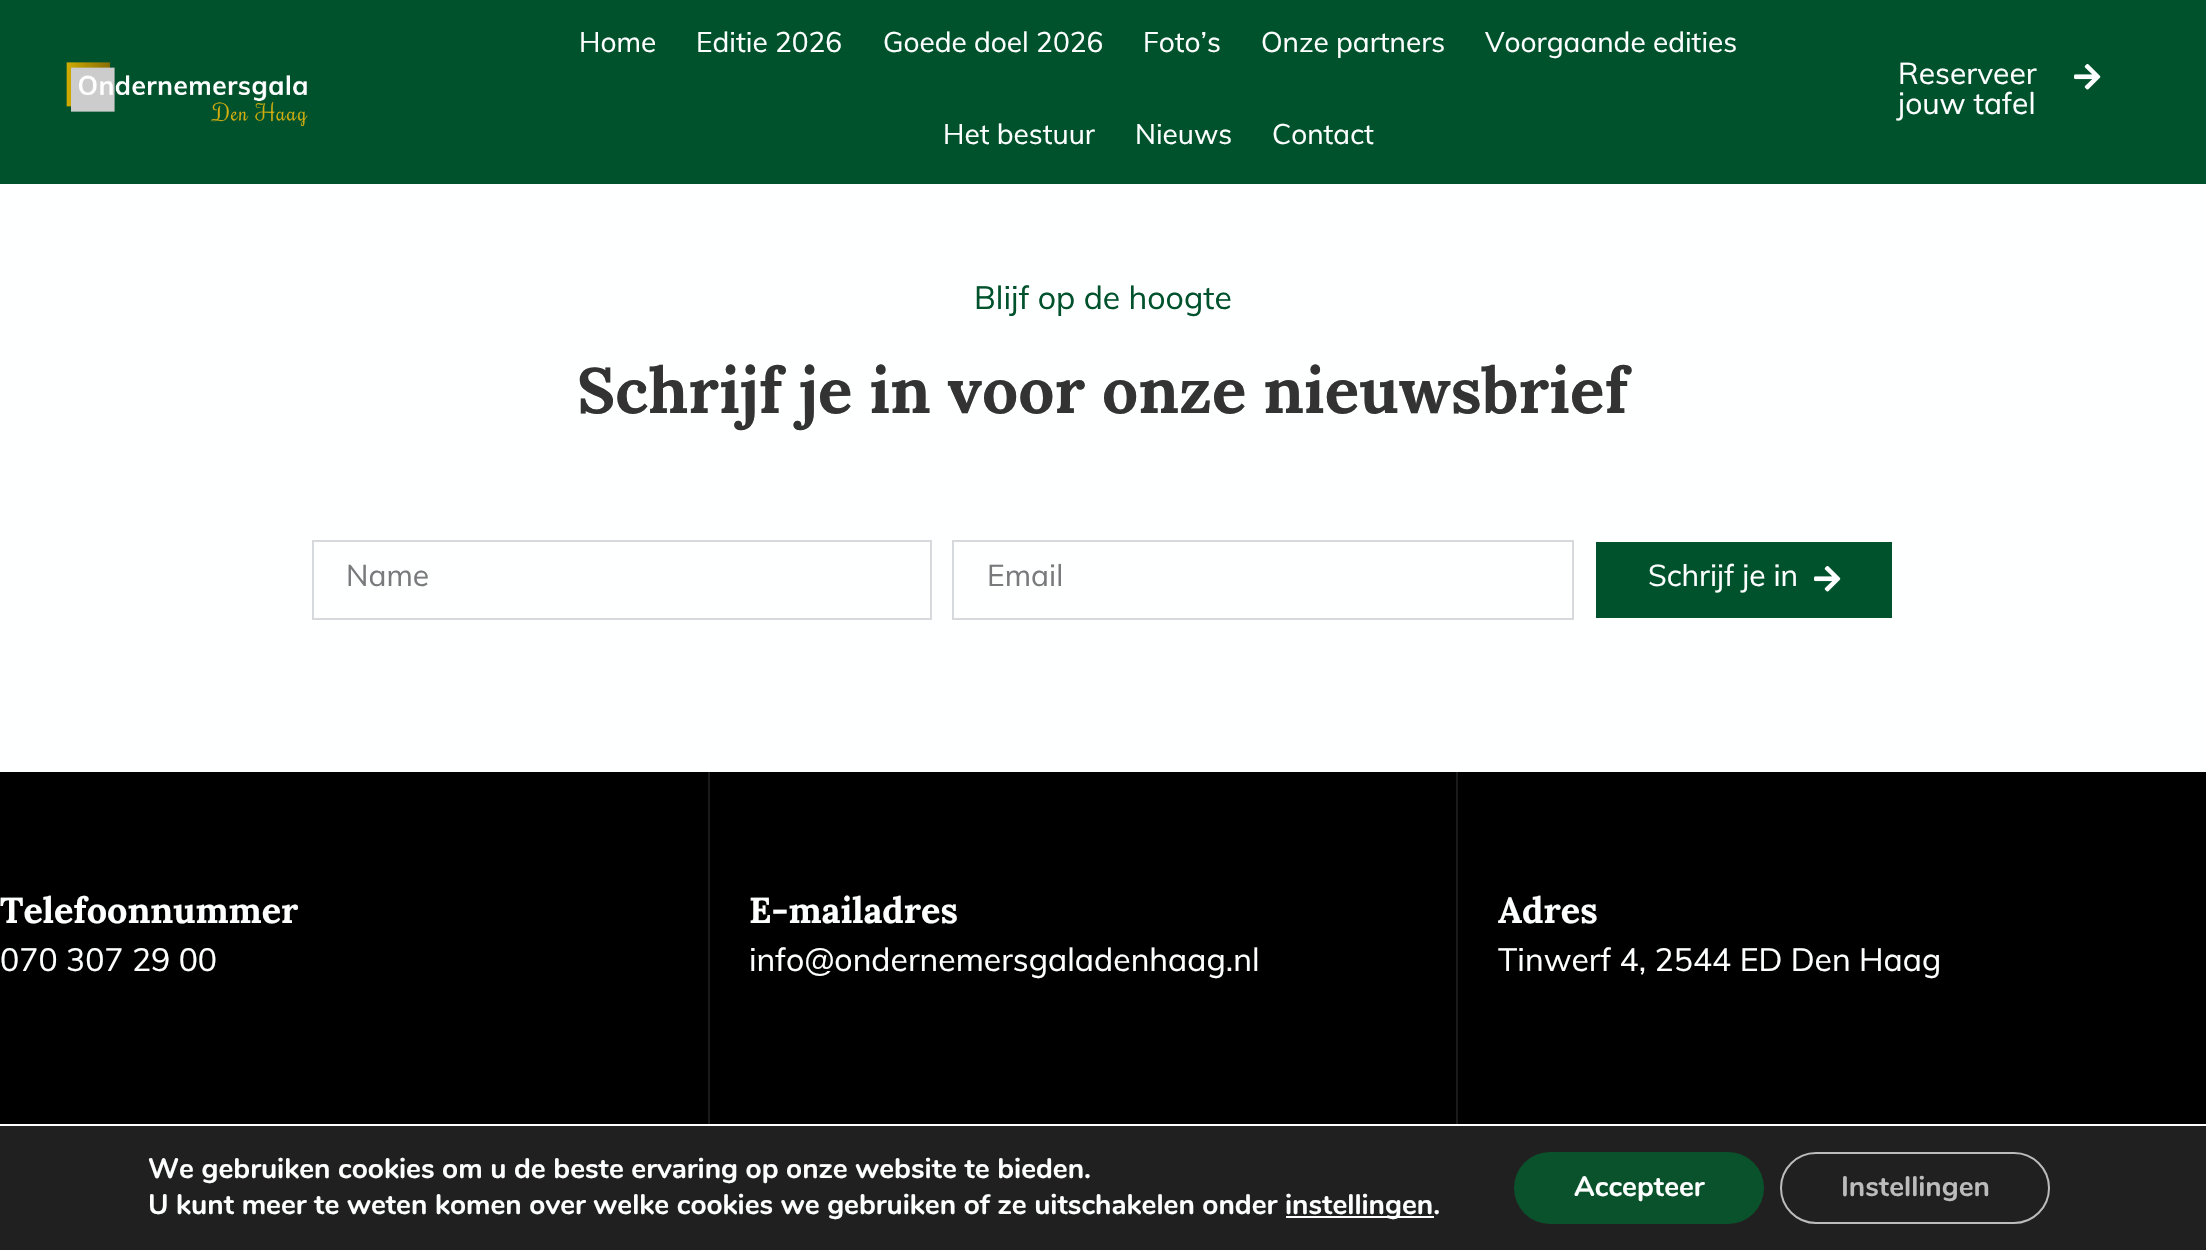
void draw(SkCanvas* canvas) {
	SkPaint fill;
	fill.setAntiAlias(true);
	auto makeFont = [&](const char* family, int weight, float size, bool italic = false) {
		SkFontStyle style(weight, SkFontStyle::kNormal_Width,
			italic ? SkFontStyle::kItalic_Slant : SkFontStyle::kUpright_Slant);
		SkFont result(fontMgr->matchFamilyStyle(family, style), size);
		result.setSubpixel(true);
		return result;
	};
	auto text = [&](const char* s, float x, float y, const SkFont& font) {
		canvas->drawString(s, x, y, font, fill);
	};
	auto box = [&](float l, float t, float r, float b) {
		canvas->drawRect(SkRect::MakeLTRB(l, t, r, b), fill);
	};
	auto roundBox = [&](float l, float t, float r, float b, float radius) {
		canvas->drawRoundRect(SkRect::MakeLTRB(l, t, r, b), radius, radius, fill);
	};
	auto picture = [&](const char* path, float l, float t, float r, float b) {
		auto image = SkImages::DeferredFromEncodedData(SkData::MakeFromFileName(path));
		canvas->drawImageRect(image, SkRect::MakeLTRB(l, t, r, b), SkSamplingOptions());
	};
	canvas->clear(0xFF000000);
	fill.setColor(0xFF00522C);
	box(0, 0, 2206, 184);
	picture("image0.png", 66, 62, 308, 127);
	picture("image1.png", 2074, 64, 2101, 90);
	fill.setColor(0xFFFEFFFF);
	box(0, 184, 2206, 772);
	fill.setStyle(SkPaint::kStroke_Style);
	fill.setStrokeWidth(2);
	fill.setColor(0xFFD6DADD);
	canvas->drawRect(SkRect::MakeLTRB(313, 541, 931, 619), fill);
	canvas->drawRect(SkRect::MakeLTRB(953, 541, 1573, 619), fill);
	fill.setStyle(SkPaint::kFill_Style);
	fill.setColor(0xFF00522C);
	box(1596, 542, 1892, 618);
	picture("image2.png", 1814, 566, 1841, 592);
	fill.setColor(0xFF1A1A1A);
	box(708, 772, 710, 1124);
	box(1456, 772, 1458, 1124);
	fill.setColor(0xFF202020);
	box(0, 1126, 2206, 1250);
	fill.setColor(0xFFFFFFFF);
	box(0, 1124, 2206, 1126);
	box(1286, 1216, 1434, 1218);
	fill.setColor(0xFF0A522B);
	roundBox(1514, 1152, 1764, 1224, 36);
	fill.setStyle(SkPaint::kStroke_Style);
	fill.setColor(0xFFBCBCBC);
	canvas->drawRoundRect(SkRect::MakeLTRB(1781, 1153, 2049, 1223), 35, 35, fill);
	auto font1 = makeFont("Muli", 400, 28);
	fill.setStyle(SkPaint::kFill_Style);
	fill.setColor(0xFFFEFFFF);
	text("Home", 579, 52, font1);
	text("Editie 2026", 696, 52, font1);
	text("Goede doel 2026", 883, 52, font1);
	text("Foto’s", 1143, 52, font1);
	text("Onze partners", 1261, 52, font1);
	text("Voorgaande edities", 1485, 52, font1);
	text("Het bestuur", 943, 144, font1);
	text("Nieuws", 1135, 144, font1);
	text("Contact", 1272, 144, font1);
	auto font2 = makeFont("Muli", 400, 30);
	text("Reserveer", 1898, 84, font2);
	text("jouw tafel", 1898, 114, font2);
	auto font3 = makeFont("Muli", 400, 32);
	fill.setColor(0xFF00522C);
	text("Blijf op de hoogte", 974, 309, font3);
	auto font4 = makeFont("Lora", 700, 64);
	fill.setColor(0xFF333333);
	text("Schrijf je in voor onze nieuwsbrief", 577, 413, font4);
	fill.setColor(0xFF787A7C);
	text("Name", 346, 586, font2);
	text("Email", 987, 586, font2);
	fill.setColor(0xFFFEFFFF);
	text("Schrijf je in", 1648, 586, font2);
	auto font5 = makeFont("Lora", 700, 36);
	text("Telefoonnummer", 0, 923, font5);
	text("070 307 29 00", 0, 971, font3);
	text("E-mailadres", 749, 923, font5);
	text("info@ondernemersgaladenhaag.nl", 749, 971, font3);
	text("Adres", 1498, 923, font5);
	text("Tinwerf 4, 2544 ED Den Haag", 1498, 971, font3);
	auto font6 = makeFont("Nunito", 700, 28);
	text("We gebruiken cookies om u de beste ervaring op onze website te bieden.", 148, 1178, font6);
	text("U kunt meer te weten komen over welke cookies we gebruiken of ze uitschakelen onder", 148, 1214, font6);
	text("instellingen.", 1285, 1214, font6);
	text("Accepteer", 1574, 1196, font6);
	fill.setColor(0xFFBCBCBC);
	text("Instellingen", 1841, 1196, font6);
}
